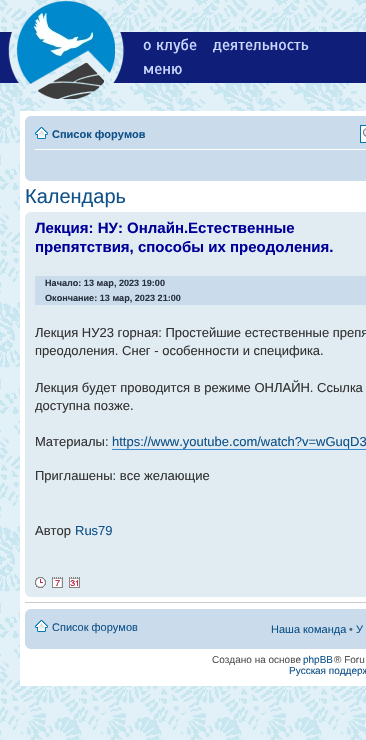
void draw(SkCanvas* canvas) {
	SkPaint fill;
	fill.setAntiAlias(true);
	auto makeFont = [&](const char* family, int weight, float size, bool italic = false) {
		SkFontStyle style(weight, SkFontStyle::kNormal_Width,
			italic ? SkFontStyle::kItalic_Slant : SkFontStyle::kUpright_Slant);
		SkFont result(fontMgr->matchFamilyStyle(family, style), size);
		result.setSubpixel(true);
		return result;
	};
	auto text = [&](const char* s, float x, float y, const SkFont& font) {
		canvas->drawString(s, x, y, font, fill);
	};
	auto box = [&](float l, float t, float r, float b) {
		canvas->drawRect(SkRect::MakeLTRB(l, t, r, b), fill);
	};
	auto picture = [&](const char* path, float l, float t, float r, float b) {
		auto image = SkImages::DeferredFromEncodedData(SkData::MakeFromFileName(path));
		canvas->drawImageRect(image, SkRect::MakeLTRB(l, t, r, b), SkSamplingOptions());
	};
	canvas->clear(0xFFFFFFFF);
	picture("image0.png", 0, 0, 366, 740);
	picture("image1.png", 0, 1, 131, 99);
	fill.setColor(0xFF0F1E79);
	box(131, 32, 366, 83);
	fill.setColor(0xFFFFFFFF);
	box(20, 111, 366, 686);
	fill.setColor(0xFFCADCEB);
	box(25, 116, 366, 181);
	picture("image2.png", 25, 116, 30, 121);
	fill.setColor(0xFFFFFFFF);
	box(35, 149, 366, 150);
	picture("image3.png", 35, 127, 48, 139);
	box(361, 125, 366, 143);
	picture("image4.png", 363, 128, 366, 137);
	fill.setStyle(SkPaint::kStroke_Style);
	fill.setStrokeWidth(1);
	fill.setColor(0xFF0075B0);
	canvas->drawRect(SkRect::MakeLTRB(360.5f, 125.5f, 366.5f, 142.5f), fill);
	picture("image5.png", 25, 176, 30, 181);
	fill.setStyle(SkPaint::kFill_Style);
	fill.setColor(0xFFE1EBF2);
	box(25, 212, 366, 597);
	picture("image6.png", 25, 212, 30, 217);
	fill.setColor(0xFFCADCEB);
	box(35, 276, 366, 305);
	fill.setColor(0xFF368AD2);
	box(112, 449, 366, 450);
	picture("image7.png", 35, 577, 46, 588);
	picture("image8.png", 52, 577, 63, 588);
	picture("image9.png", 69, 577, 80, 588);
	picture("image10.png", 25, 592, 30, 597);
	fill.setColor(0xFFCCCCCC);
	box(25, 602, 366, 603);
	fill.setColor(0xFFCADCEB);
	box(25, 609, 366, 649);
	picture("image2.png", 25, 609, 30, 614);
	picture("image3.png", 35, 620, 48, 632);
	picture("image5.png", 25, 644, 30, 649);
	auto font1 = makeFont("Scada", 400, 16);
	fill.setColor(0xFFCAD8FE);
	text("о клубе", 143, 50, font1);
	text("деятельность", 213, 50, font1);
	text("меню", 143, 74, font1);
	auto font2 = makeFont("Liberation Sans", 700, 11);
	fill.setColor(0xFF105289);
	text("Список форумов", 52, 138, font2);
	auto font3 = makeFont("Liberation Sans", 400, 20);
	text("Календарь", 25, 203, font3);
	auto font4 = makeFont("Liberation Sans", 700, 15);
	fill.setColor(0xFF000099);
	text("Лекция: НУ: Онлайн.Естественные", 35, 233, font4);
	text("препятствия, способы их преодоления.", 35, 252, font4);
	auto font5 = makeFont("Liberation Sans", 700, 9.1f);
	fill.setColor(0xFF28313F);
	text("Начало: 13 мар, 2023 19:00", 45, 286, font5);
	text("Окончание: 13 мар, 2023 21:00", 45, 301, font5);
	auto font6 = makeFont("Liberation Sans", 400, 13);
	fill.setColor(0xFF333333);
	text("Лекция НУ23 горная: Простейшие естественные препя", 35, 337, font6);
	text("преодоления. Снег - особенности и специфика.", 35, 355, font6);
	text("Лекция будет проводится в режиме ОНЛАЙН. Ссылка", 35, 392, font6);
	text("доступна позже.", 35, 410, font6);
	text("Материалы:", 35, 446, font6);
	fill.setColor(0xFF105289);
	text("https://www.youtube.com/watch?v=wGuqD3", 112, 446, font6);
	fill.setColor(0xFF333333);
	text("Приглашены: все желающие", 35, 480, font6);
	text("Автор", 35, 535, font6);
	fill.setColor(0xFF105289);
	text("Rus79", 75, 535, font6);
	auto font7 = makeFont("Liberation Sans", 400, 11);
	text("Список форумов", 52, 631, font7);
	text("Наша команда", 271, 633, font7);
	fill.setColor(0xFF536482);
	text("•", 349, 633, font7);
	fill.setColor(0xFF105289);
	text("У", 356, 633, font7);
	auto font8 = makeFont("Liberation Sans", 400, 10);
	fill.setColor(0xFF555555);
	text("Создано на основе", 212, 663, font8);
	fill.setColor(0xFF105289);
	text("phpBB", 303, 663, font8);
	fill.setColor(0xFF555555);
	text("® Foru", 334, 663, font8);
	fill.setColor(0xFF105289);
	text("Русская поддерж", 289, 674, font8);
}
